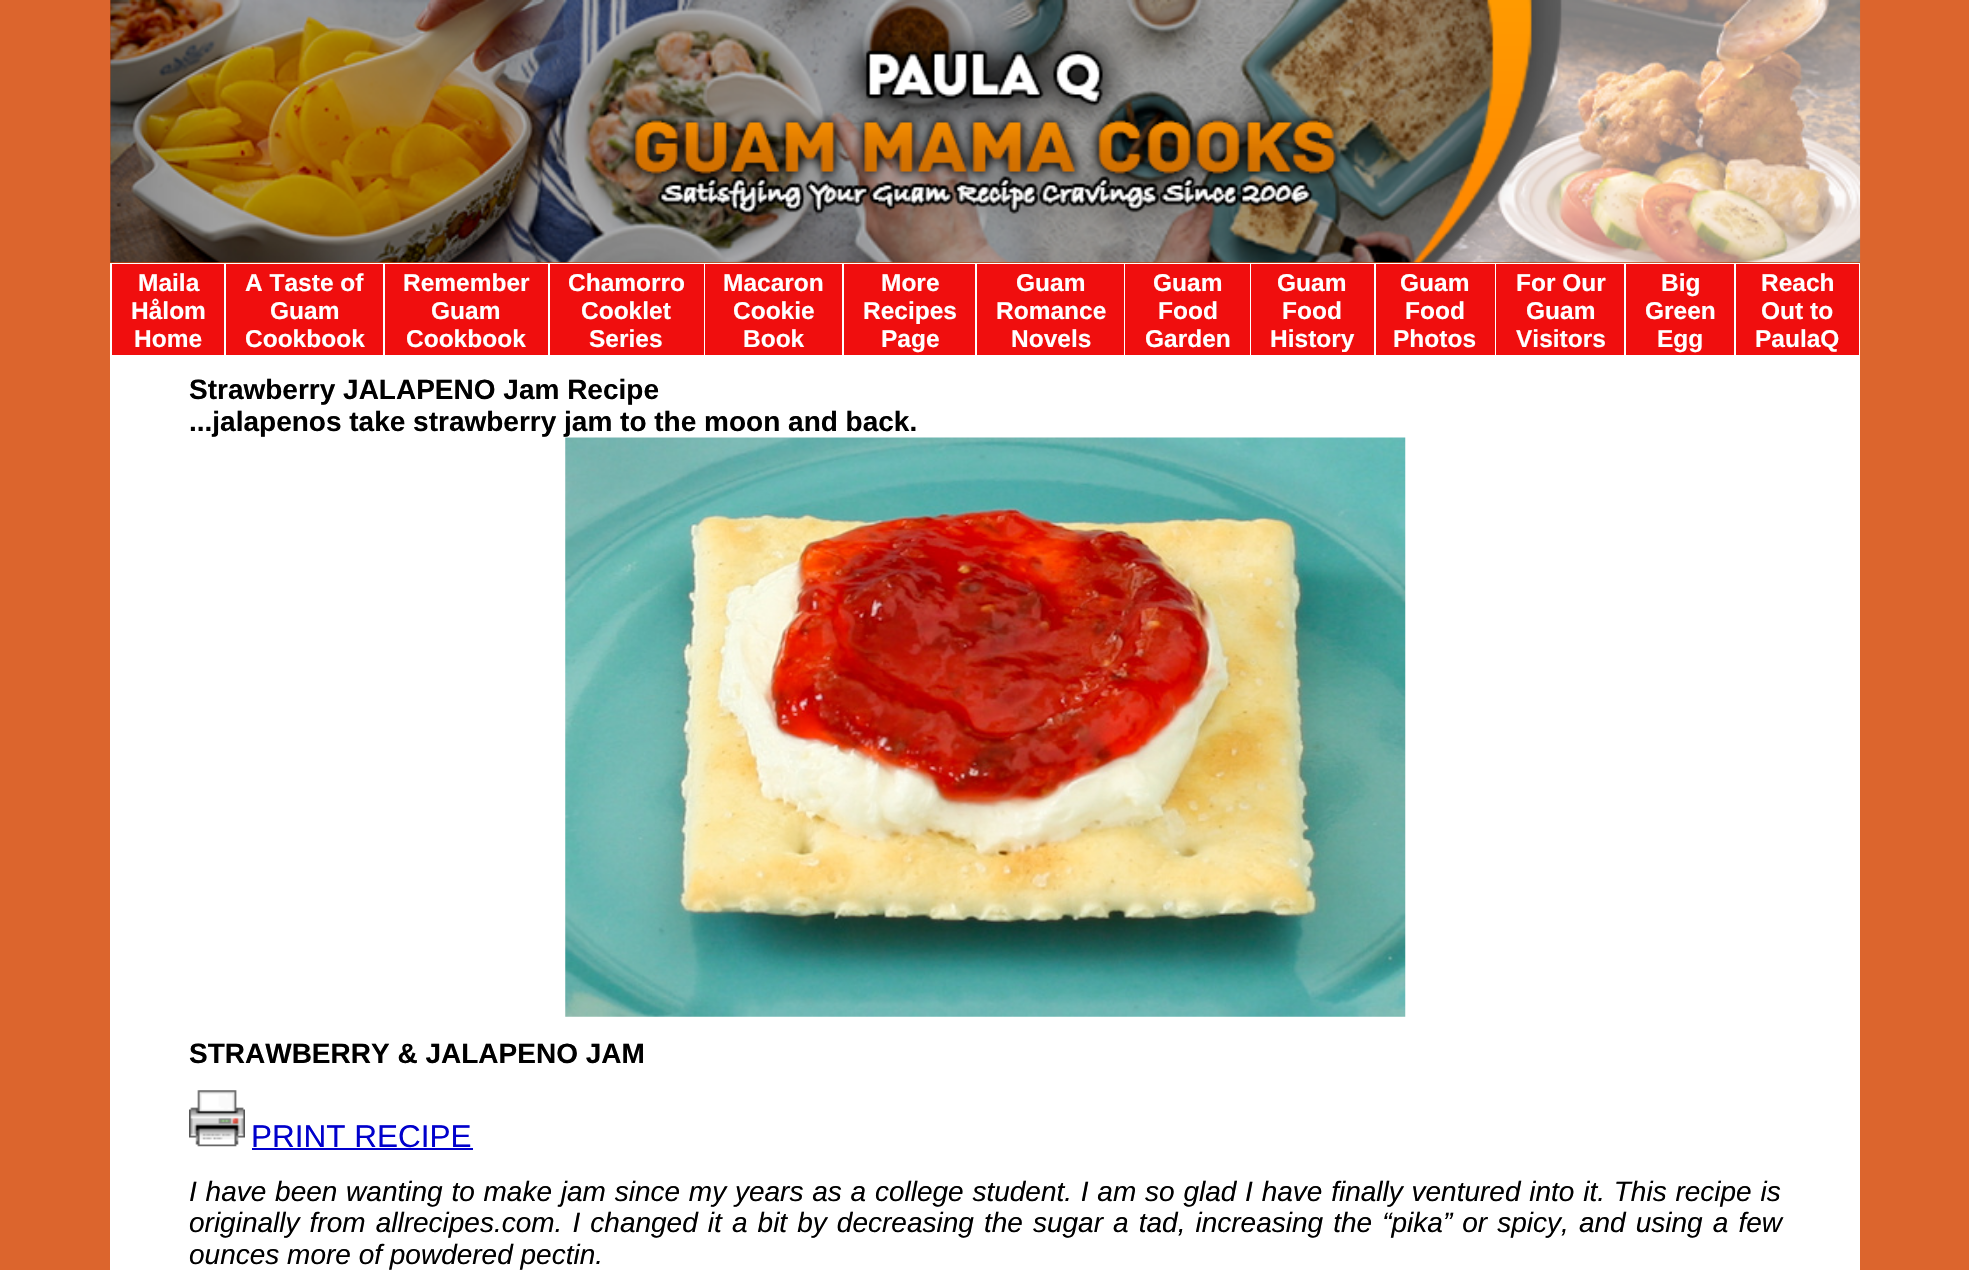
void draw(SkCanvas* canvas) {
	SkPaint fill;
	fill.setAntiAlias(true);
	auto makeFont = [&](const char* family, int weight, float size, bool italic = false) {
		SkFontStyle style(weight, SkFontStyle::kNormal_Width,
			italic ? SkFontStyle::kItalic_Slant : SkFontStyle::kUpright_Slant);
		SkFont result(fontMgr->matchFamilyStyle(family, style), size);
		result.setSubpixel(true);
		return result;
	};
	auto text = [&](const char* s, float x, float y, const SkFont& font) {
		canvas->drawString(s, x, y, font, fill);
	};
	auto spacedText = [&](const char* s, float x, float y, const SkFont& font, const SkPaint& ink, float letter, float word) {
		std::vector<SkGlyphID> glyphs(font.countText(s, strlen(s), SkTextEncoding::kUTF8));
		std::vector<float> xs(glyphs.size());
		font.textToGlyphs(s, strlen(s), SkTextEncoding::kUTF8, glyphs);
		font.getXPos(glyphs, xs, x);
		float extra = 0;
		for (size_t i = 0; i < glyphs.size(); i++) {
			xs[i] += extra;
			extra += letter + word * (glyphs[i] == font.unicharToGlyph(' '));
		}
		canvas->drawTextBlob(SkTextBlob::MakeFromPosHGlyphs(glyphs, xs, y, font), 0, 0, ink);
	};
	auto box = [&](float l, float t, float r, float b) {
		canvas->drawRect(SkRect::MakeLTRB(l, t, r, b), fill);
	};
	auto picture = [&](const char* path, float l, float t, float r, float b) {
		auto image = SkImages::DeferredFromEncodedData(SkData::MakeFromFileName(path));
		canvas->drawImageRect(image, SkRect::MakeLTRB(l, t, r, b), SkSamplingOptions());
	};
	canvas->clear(0xFFDC652D);
	fill.setColor(0xFFC2470E);
	box(110, 0, 1860, 263);
	picture("image0.png", 110, 0, 1861, 263);
	fill.setColor(0xFFFFFFFF);
	box(110, 263, 1860, 1270);
	fill.setColor(0xFFF00E0E);
	box(112, 264, 224, 355);
	box(226, 264, 383, 355);
	box(385, 264, 548, 355);
	box(550, 264, 704, 355);
	box(705, 264, 842, 355);
	box(844, 264, 975, 355);
	box(977, 264, 1124, 355);
	box(1125, 264, 1250, 355);
	box(1251, 264, 1374, 355);
	box(1376, 264, 1495, 355);
	box(1496, 264, 1624, 355);
	box(1626, 264, 1734, 355);
	box(1736, 264, 1859, 355);
	picture("image1.png", 565, 437, 1406, 1017);
	picture("image2.png", 189, 1090, 245, 1147);
	fill.setColor(0xFF0000CC);
	box(252, 1148, 473, 1150);
	auto font1 = makeFont("Liberation Sans", 700, 24.5f);
	fill.setColor(0xFFFFFFFF);
	text("Maila", 138, 291, font1);
	text("Hålom", 131, 319, font1);
	text("Home", 134, 347, font1);
	text("A Taste of", 245, 291, font1);
	text("Guam", 270, 319, font1);
	text("Cookbook", 245, 347, font1);
	text("Remember", 403, 291, font1);
	text("Guam", 431, 319, font1);
	text("Cookbook", 406, 347, font1);
	text("Chamorro", 568, 291, font1);
	text("Cooklet", 581, 319, font1);
	text("Series", 589, 347, font1);
	text("Macaron", 723, 291, font1);
	text("Cookie", 733, 319, font1);
	text("Book", 743, 347, font1);
	text("More", 881, 291, font1);
	text("Recipes", 863, 319, font1);
	text("Page", 881, 347, font1);
	text("Guam", 1016, 291, font1);
	text("Romance", 996, 319, font1);
	text("Novels", 1011, 347, font1);
	text("Guam", 1153, 291, font1);
	text("Food", 1158, 319, font1);
	text("Garden", 1145, 347, font1);
	text("Guam", 1277, 291, font1);
	text("Food", 1282, 319, font1);
	text("History", 1270, 347, font1);
	text("Guam", 1400, 291, font1);
	text("Food", 1405, 319, font1);
	text("Photos", 1393, 347, font1);
	text("For Our", 1516, 291, font1);
	text("Guam", 1526, 319, font1);
	text("Visitors", 1516, 347, font1);
	text("Big", 1661, 291, font1);
	text("Green", 1645, 319, font1);
	text("Egg", 1657, 347, font1);
	text("Reach", 1761, 291, font1);
	text("Out to", 1761, 319, font1);
	text("PaulaQ", 1755, 347, font1);
	auto font2 = makeFont("Liberation Sans", 700, 28);
	fill.setColor(0xFF000000);
	text("Strawberry JALAPENO Jam Recipe", 189, 399, font2);
	text("...jalapenos take strawberry jam to the moon and back.", 189, 431, font2);
	text("STRAWBERRY & JALAPENO JAM", 189, 1063, font2);
	auto font3 = makeFont("Liberation Sans", 400, 31.5f);
	fill.setColor(0xFF0000CC);
	text("PRINT RECIPE", 251, 1147, font3);
	auto font4 = makeFont("Liberation Sans", 400, 28, true);
	fill.setColor(0xFF000000);
	spacedText("I have been wanting to make jam since my years as a college student. I am so glad I have finally ventured into it. This recipe is", 189, 1201, font4, fill, 0, 1);
	spacedText("originally from allrecipes.com. I changed it a bit by decreasing the sugar a tad, increasing the “pika” or spicy, and using a few", 189, 1232, font4, fill, 0, 2.3f);
	text("ounces more of powdered pectin.", 189, 1264, font4);
}
